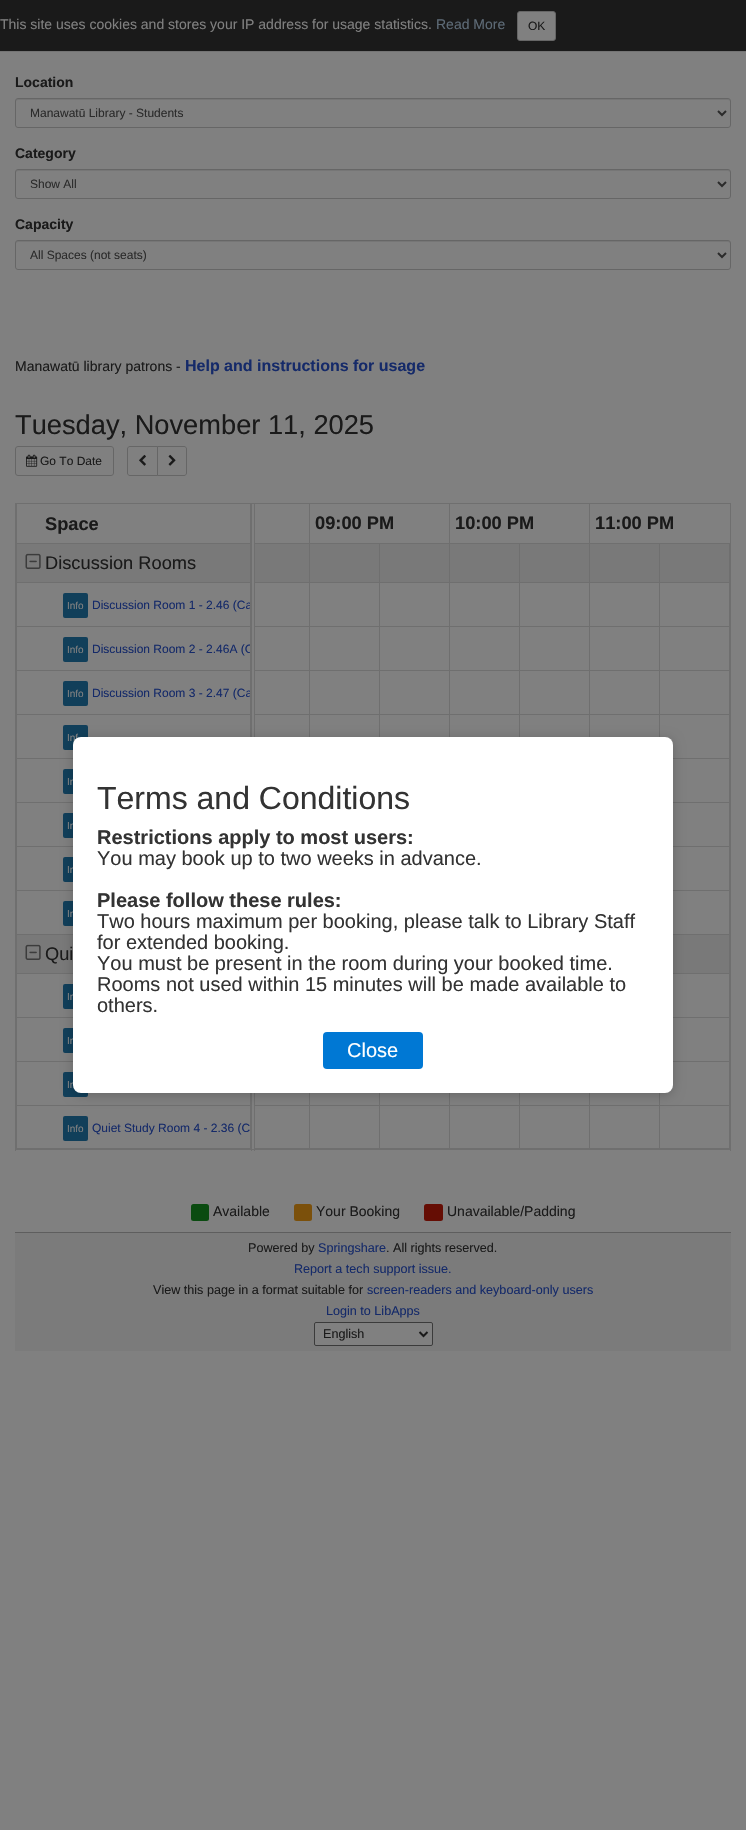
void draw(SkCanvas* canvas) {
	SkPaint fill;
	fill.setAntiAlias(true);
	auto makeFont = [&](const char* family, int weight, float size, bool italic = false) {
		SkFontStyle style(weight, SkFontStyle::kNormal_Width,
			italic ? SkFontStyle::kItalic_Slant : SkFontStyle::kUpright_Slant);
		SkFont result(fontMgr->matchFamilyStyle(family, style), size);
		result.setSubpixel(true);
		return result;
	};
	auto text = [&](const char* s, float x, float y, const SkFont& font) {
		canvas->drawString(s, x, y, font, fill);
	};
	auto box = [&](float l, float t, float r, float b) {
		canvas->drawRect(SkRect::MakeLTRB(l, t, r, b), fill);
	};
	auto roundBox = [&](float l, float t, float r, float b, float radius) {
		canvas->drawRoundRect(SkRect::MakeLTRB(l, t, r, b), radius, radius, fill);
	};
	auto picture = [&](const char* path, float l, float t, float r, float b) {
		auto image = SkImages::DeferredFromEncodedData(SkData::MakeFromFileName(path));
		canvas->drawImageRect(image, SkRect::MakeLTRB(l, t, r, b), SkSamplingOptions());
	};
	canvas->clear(0xFF808080);
	fill.setColor(0xFF1A1A1A);
	box(0, 0, 746, 51);
	fill.setColor(0xFF747474);
	box(0, 51, 746, 52);
	fill.setColor(0xFF808080);
	canvas->drawRoundRect(SkRect::MakeLTRB(517.5f, 11.5f, 555.5f, 40.5f), 2.5f, 2.5f, fill);
	fill.setStyle(SkPaint::kStroke_Style);
	fill.setStrokeWidth(1);
	fill.setColor(0xFF666666);
	canvas->drawRoundRect(SkRect::MakeLTRB(517.5f, 11.5f, 555.5f, 40.5f), 2.5f, 2.5f, fill);
	fill.setStyle(SkPaint::kFill_Style);
	fill.setColor(0xFF767676);
	canvas->drawPath(SkPathBuilder().moveTo(18, 100).lineTo(728, 100).cubicTo(729, 100, 730, 101, 730, 102).cubicTo(730, 101, 730, 99, 728, 99).lineTo(18, 99).cubicTo(16, 99, 16, 101, 16, 102).cubicTo(16, 101, 17, 100, 18, 100).close().detach(), fill);
	fill.setStyle(SkPaint::kStroke_Style);
	fill.setColor(0xFF666666);
	canvas->drawRoundRect(SkRect::MakeLTRB(15.5f, 98.5f, 730.5f, 127.5f), 2.5f, 2.5f, fill);
	fill.setStrokeWidth(2);
	fill.setColor(0xFF2B2B2B);
	canvas->drawPath(SkPathBuilder().moveTo(718, 111).lineTo(722, 115).lineTo(726, 111).detach(), fill);
	fill.setStyle(SkPaint::kFill_Style);
	fill.setColor(0xFF767676);
	canvas->drawPath(SkPathBuilder().moveTo(18, 171).lineTo(728, 171).cubicTo(729, 171, 730, 172, 730, 173).cubicTo(730, 172, 730, 170, 728, 170).lineTo(18, 170).cubicTo(16, 170, 16, 172, 16, 173).cubicTo(16, 172, 17, 171, 18, 171).close().detach(), fill);
	fill.setStyle(SkPaint::kStroke_Style);
	fill.setStrokeWidth(1);
	fill.setColor(0xFF666666);
	canvas->drawRoundRect(SkRect::MakeLTRB(15.5f, 169.5f, 730.5f, 198.5f), 2.5f, 2.5f, fill);
	fill.setStrokeWidth(2);
	fill.setColor(0xFF2B2B2B);
	canvas->drawPath(SkPathBuilder().moveTo(718, 182).lineTo(722, 186).lineTo(726, 182).detach(), fill);
	fill.setStyle(SkPaint::kFill_Style);
	fill.setColor(0xFF767676);
	canvas->drawPath(SkPathBuilder().moveTo(18, 242).lineTo(728, 242).cubicTo(729, 242, 730, 243, 730, 244).cubicTo(730, 243, 730, 241, 728, 241).lineTo(18, 241).cubicTo(16, 241, 16, 243, 16, 244).cubicTo(16, 243, 17, 242, 18, 242).close().detach(), fill);
	fill.setStyle(SkPaint::kStroke_Style);
	fill.setStrokeWidth(1);
	fill.setColor(0xFF666666);
	canvas->drawRoundRect(SkRect::MakeLTRB(15.5f, 240.5f, 730.5f, 269.5f), 2.5f, 2.5f, fill);
	fill.setStrokeWidth(2);
	fill.setColor(0xFF2B2B2B);
	canvas->drawPath(SkPathBuilder().moveTo(718, 253).lineTo(722, 257).lineTo(726, 253).detach(), fill);
	fill.setStrokeWidth(1);
	fill.setColor(0xFF666666);
	canvas->drawRoundRect(SkRect::MakeLTRB(15.5f, 446.5f, 113.5f, 475.5f), 2.5f, 2.5f, fill);
	picture("image0.png", 26, 454, 38, 467);
	canvas->drawPath(SkPathBuilder().moveTo(130, 446.5f).lineTo(157.5f, 446.5f).lineTo(157.5f, 475.5f).lineTo(130, 475.5f).cubicTo(128.5f, 475.5f, 127.5f, 474.5f, 127.5f, 473).lineTo(127.5f, 449).cubicTo(127.5f, 447.5f, 128.5f, 446.5f, 130, 446.5f).close().detach(), fill);
	picture("image1.png", 139, 454, 146, 466);
	fill.setStyle(SkPaint::kFill_Style);
	fill.setColor(0xFF808080);
	canvas->drawPath(SkPathBuilder().moveTo(157.5f, 446.5f).lineTo(184, 446.5f).cubicTo(185.5f, 446.5f, 186.5f, 447.5f, 186.5f, 449).lineTo(186.5f, 473).cubicTo(186.5f, 474.5f, 185.5f, 475.5f, 184, 475.5f).lineTo(157.5f, 475.5f).close().detach(), fill);
	fill.setStyle(SkPaint::kStroke_Style);
	fill.setColor(0xFF666666);
	canvas->drawPath(SkPathBuilder().moveTo(157.5f, 446.5f).lineTo(184, 446.5f).cubicTo(185.5f, 446.5f, 186.5f, 447.5f, 186.5f, 449).lineTo(186.5f, 473).cubicTo(186.5f, 474.5f, 185.5f, 475.5f, 184, 475.5f).lineTo(157.5f, 475.5f).close().detach(), fill);
	picture("image2.png", 168, 454, 176, 466);
	fill.setStyle(SkPaint::kFill_Style);
	fill.setColor(0xFF6F6F6F);
	box(15, 503, 731, 504);
	box(15, 503, 16, 1151);
	box(251, 504, 252, 1151);
	box(250, 504, 251, 544);
	box(16, 543, 251, 544);
	box(16, 504, 17, 544);
	box(254, 504, 255, 1151);
	box(730, 504, 731, 1151);
	box(589, 543, 730, 544);
	box(589, 504, 590, 544);
	box(449, 543, 590, 544);
	box(449, 504, 450, 544);
	box(309, 543, 450, 544);
	box(309, 504, 310, 544);
	box(255, 543, 310, 544);
	box(16, 1149, 731, 1150);
	fill.setColor(0xFF797979);
	box(17, 544, 250, 582);
	picture("image3.png", 25, 553, 41, 569);
	fill.setColor(0xFF6F6F6F);
	box(16, 582, 251, 583);
	box(16, 626, 251, 627);
	box(16, 670, 251, 671);
	box(16, 714, 251, 715);
	box(250, 714, 251, 737);
	box(250, 670, 251, 715);
	box(250, 626, 251, 671);
	box(250, 544, 251, 627);
	box(16, 758, 73, 759);
	box(16, 802, 73, 803);
	box(16, 846, 73, 847);
	box(16, 890, 73, 891);
	box(16, 934, 73, 935);
	box(16, 973, 73, 974);
	box(16, 1017, 73, 1018);
	box(16, 1061, 73, 1062);
	box(16, 1105, 251, 1106);
	box(250, 1093, 251, 1149);
	box(16, 1148, 251, 1149);
	box(16, 1105, 17, 1149);
	box(16, 1061, 17, 1106);
	box(16, 1017, 17, 1062);
	box(16, 973, 17, 1018);
	box(16, 934, 17, 974);
	box(16, 890, 17, 935);
	box(16, 846, 17, 891);
	box(16, 802, 17, 847);
	box(16, 758, 17, 803);
	box(16, 714, 17, 759);
	box(16, 670, 17, 715);
	box(16, 626, 17, 671);
	box(16, 544, 17, 627);
	fill.setColor(0xFF113F5A);
	roundBox(63, 593, 88, 618, 2);
	roundBox(63, 637, 88, 662, 2);
	roundBox(63, 681, 88, 706, 2);
	roundBox(63, 725, 88, 750, 2);
	roundBox(63, 769, 88, 794, 2);
	roundBox(63, 813, 88, 838, 2);
	roundBox(63, 857, 88, 882, 2);
	roundBox(63, 901, 88, 926, 2);
	fill.setColor(0xFF797979);
	box(17, 935, 73, 973);
	picture("image3.png", 25, 944, 41, 960);
	fill.setColor(0xFF113F5A);
	roundBox(63, 984, 88, 1009, 2);
	roundBox(63, 1028, 88, 1053, 2);
	roundBox(63, 1072, 88, 1097, 2);
	roundBox(63, 1116, 88, 1141, 2);
	fill.setColor(0xFF797979);
	box(255, 544, 729, 582);
	fill.setColor(0xFF6F6F6F);
	box(255, 582, 730, 583);
	box(255, 626, 730, 627);
	box(255, 670, 730, 671);
	box(255, 714, 730, 715);
	box(673, 758, 730, 759);
	box(673, 802, 730, 803);
	box(673, 846, 730, 847);
	box(673, 890, 730, 891);
	box(673, 934, 730, 935);
	box(673, 973, 730, 974);
	box(673, 1017, 730, 1018);
	box(673, 1061, 730, 1062);
	box(255, 1105, 730, 1106);
	box(729, 1105, 730, 1149);
	box(729, 1061, 730, 1106);
	box(729, 1017, 730, 1062);
	box(729, 973, 730, 1018);
	box(729, 934, 730, 974);
	box(729, 890, 730, 935);
	box(729, 846, 730, 891);
	box(729, 802, 730, 847);
	box(729, 758, 730, 803);
	box(729, 714, 730, 759);
	box(729, 670, 730, 715);
	box(729, 626, 730, 671);
	box(729, 544, 730, 627);
	fill.setColor(0xFF797979);
	box(673, 935, 729, 973);
	fill.setColor(0xFF6F6F6F);
	box(255, 1148, 730, 1149);
	box(309, 544, 310, 1149);
	box(379, 544, 380, 1149);
	box(449, 544, 450, 1149);
	box(519, 544, 520, 1149);
	box(589, 544, 590, 1149);
	box(659, 544, 660, 1149);
	fill.setColor(0xFF0A4B10);
	roundBox(191, 1204, 209, 1221, 2.5f);
	fill.setColor(0xFF7B500B);
	roundBox(294, 1204, 312, 1221, 2.5f);
	fill.setColor(0xFF650D04);
	roundBox(424, 1204, 443, 1221, 2.5f);
	fill.setColor(0xFF7B7B7B);
	box(15, 1233, 731, 1351);
	fill.setColor(0xFF5E5E5E);
	box(15, 1232, 731, 1233);
	fill.setColor(0xFF808080);
	canvas->drawRoundRect(SkRect::MakeLTRB(314.5f, 1322.5f, 432.5f, 1345.5f), 1.5f, 1.5f, fill);
	fill.setStyle(SkPaint::kStroke_Style);
	fill.setColor(0xFF3B3B3B);
	canvas->drawRoundRect(SkRect::MakeLTRB(314.5f, 1322.5f, 432.5f, 1345.5f), 1.5f, 1.5f, fill);
	fill.setStrokeWidth(2);
	fill.setColor(0xFF1A1A1A);
	canvas->drawPath(SkPathBuilder().moveTo(419.5f, 1332).lineTo(423.5f, 1336).lineTo(427.5f, 1332).detach(), fill);
	fill.setStyle(SkPaint::kFill_Style);
	fill.setColor(0x33000000);
	fill.setMaskFilter(SkMaskFilter::MakeBlur(kNormal_SkBlurStyle, 6));
	canvas->drawRoundRect(SkRect::MakeLTRB(73, 739, 673, 1095), 8, 8, fill);
	fill.setMaskFilter(nullptr);
	auto font1 = makeFont("Liberation Sans", 400, 14);
	fill.setColor(0xFF808080);
	text("This site uses cookies and stores your IP address for usage statistics.", 0, 29, font1);
	fill.setColor(0xFF5D6A76);
	text("Read More", 436, 29, font1);
	auto font2 = makeFont("Liberation Sans", 400, 12);
	fill.setColor(0xFF1A1A1A);
	text("OK", 528, 30, font2);
	auto font3 = makeFont("Liberation Sans", 700, 14);
	text("Location", 15, 87, font3);
	fill.setColor(0xFF2B2B2B);
	text("Manawatū Library - Students", 30, 117, font2);
	fill.setColor(0xFF1A1A1A);
	text("Category", 15, 158, font3);
	fill.setColor(0xFF2B2B2B);
	text("Show All", 30, 188, font2);
	fill.setColor(0xFF1A1A1A);
	text("Capacity", 15, 229, font3);
	fill.setColor(0xFF2B2B2B);
	text("All Spaces (not seats)", 30, 259, font2);
	fill.setColor(0xFF1A1A1A);
	text("Manawatū library patrons -", 15, 371, font1);
	auto font4 = makeFont("Liberation Sans", 700, 16);
	fill.setColor(0xFF152A69);
	text("Help and instructions for usage", 185, 371, font4);
	auto font5 = makeFont("Liberation Sans", 400, 27.25f);
	fill.setColor(0xFF1A1A1A);
	text("Tuesday, November 11, 2025", 15, 434, font5);
	text("Go To Date", 40, 465, font2);
	auto font6 = makeFont("Liberation Sans", 700, 18.25f);
	text("Space", 45, 530, font6);
	text("09:00 PM", 315, 529, font6);
	text("10:00 PM", 455, 529, font6);
	text("11:00 PM", 595, 529, font6);
	auto font7 = makeFont("Liberation Sans", 400, 18.25f);
	text("Discussion Rooms", 45, 569, font7);
	auto font8 = makeFont("Liberation Sans", 400, 10);
	fill.setColor(0xFF808080);
	text("Info", 67, 609, font8);
	canvas->save();
	canvas->clipRect(SkRect::MakeLTRB(16, 583, 250, 626));
	fill.setColor(0xFF152A69);
	text("Discussion Room 1 - 2.46 (Ca", 92, 609, font2);
	canvas->restore();
	fill.setColor(0xFF808080);
	text("Info", 67, 653, font8);
	canvas->save();
	canvas->clipRect(SkRect::MakeLTRB(16, 627, 250, 670));
	fill.setColor(0xFF152A69);
	text("Discussion Room 2 - 2.46A (C", 92, 653, font2);
	canvas->restore();
	fill.setColor(0xFF808080);
	text("Info", 67, 697, font8);
	canvas->save();
	canvas->clipRect(SkRect::MakeLTRB(16, 671, 250, 714));
	fill.setColor(0xFF152A69);
	text("Discussion Room 3 - 2.47 (Ca", 92, 697, font2);
	canvas->restore();
	fill.setColor(0xFF808080);
	text("Inf", 67, 741, font8);
	text("In", 67, 785, font8);
	text("In", 67, 829, font8);
	text("In", 67, 873, font8);
	text("In", 67, 917, font8);
	fill.setColor(0xFF1A1A1A);
	text("Qui", 45, 960, font7);
	fill.setColor(0xFF808080);
	text("In", 67, 1000, font8);
	text("In", 67, 1044, font8);
	text("In", 67, 1088, font8);
	text("Info", 67, 1132, font8);
	fill.setColor(0xFF152A69);
	text("Quiet Study Room 4 - 2.36 (C", 92, 1132, font2);
	fill.setColor(0xFF1A1A1A);
	text("Available", 213, 1216, font1);
	text("Your Booking", 316, 1216, font1);
	text("Unavailable/Padding", 447, 1216, font1);
	auto font9 = makeFont("Liberation Sans", 400, 12.6f);
	text("Powered by", 248, 1252, font9);
	fill.setColor(0xFF152A69);
	text("Springshare", 318, 1252, font9);
	fill.setColor(0xFF1A1A1A);
	text(". All rights reserved.", 386, 1252, font9);
	fill.setColor(0xFF152A69);
	text("Report a tech support issue.", 294, 1273, font9);
	fill.setColor(0xFF1A1A1A);
	text("View this page in a format suitable for", 153, 1294, font9);
	fill.setColor(0xFF152A69);
	text("screen-readers and keyboard-only users", 367, 1294, font9);
	text("Login to LibApps", 326, 1315, font9);
	fill.setColor(0xFF1A1A1A);
	text("English", 323, 1338, font9);
	fill.setColor(0xFFFFFFFF);
	roundBox(73, 737, 673, 1093, 8);
	auto font10 = makeFont("Liberation Sans", 400, 32);
	fill.setColor(0xFF333333);
	text("Terms and Conditions", 97, 809, font10);
	auto font11 = makeFont("Liberation Sans", 700, 20);
	text("Restrictions apply to most users:", 97, 844, font11);
	auto font12 = makeFont("Liberation Sans", 400, 20);
	text("You may book up to two weeks in advance.", 97, 865, font12);
	text("Please follow these rules:", 97, 907, font11);
	text("Two hours maximum per booking, please talk to Library Staff", 97, 928, font12);
	text("for extended booking.", 97, 949, font12);
	text("You must be present in the room during your booked time.", 97, 970, font12);
	text("Rooms not used within 15 minutes will be made available to", 97, 991, font12);
	text("others.", 97, 1012, font12);
	fill.setColor(0xFF0078D4);
	roundBox(323, 1032, 423, 1069, 4);
	fill.setColor(0xFFFFFFFF);
	text("Close", 347, 1057, font12);
}
